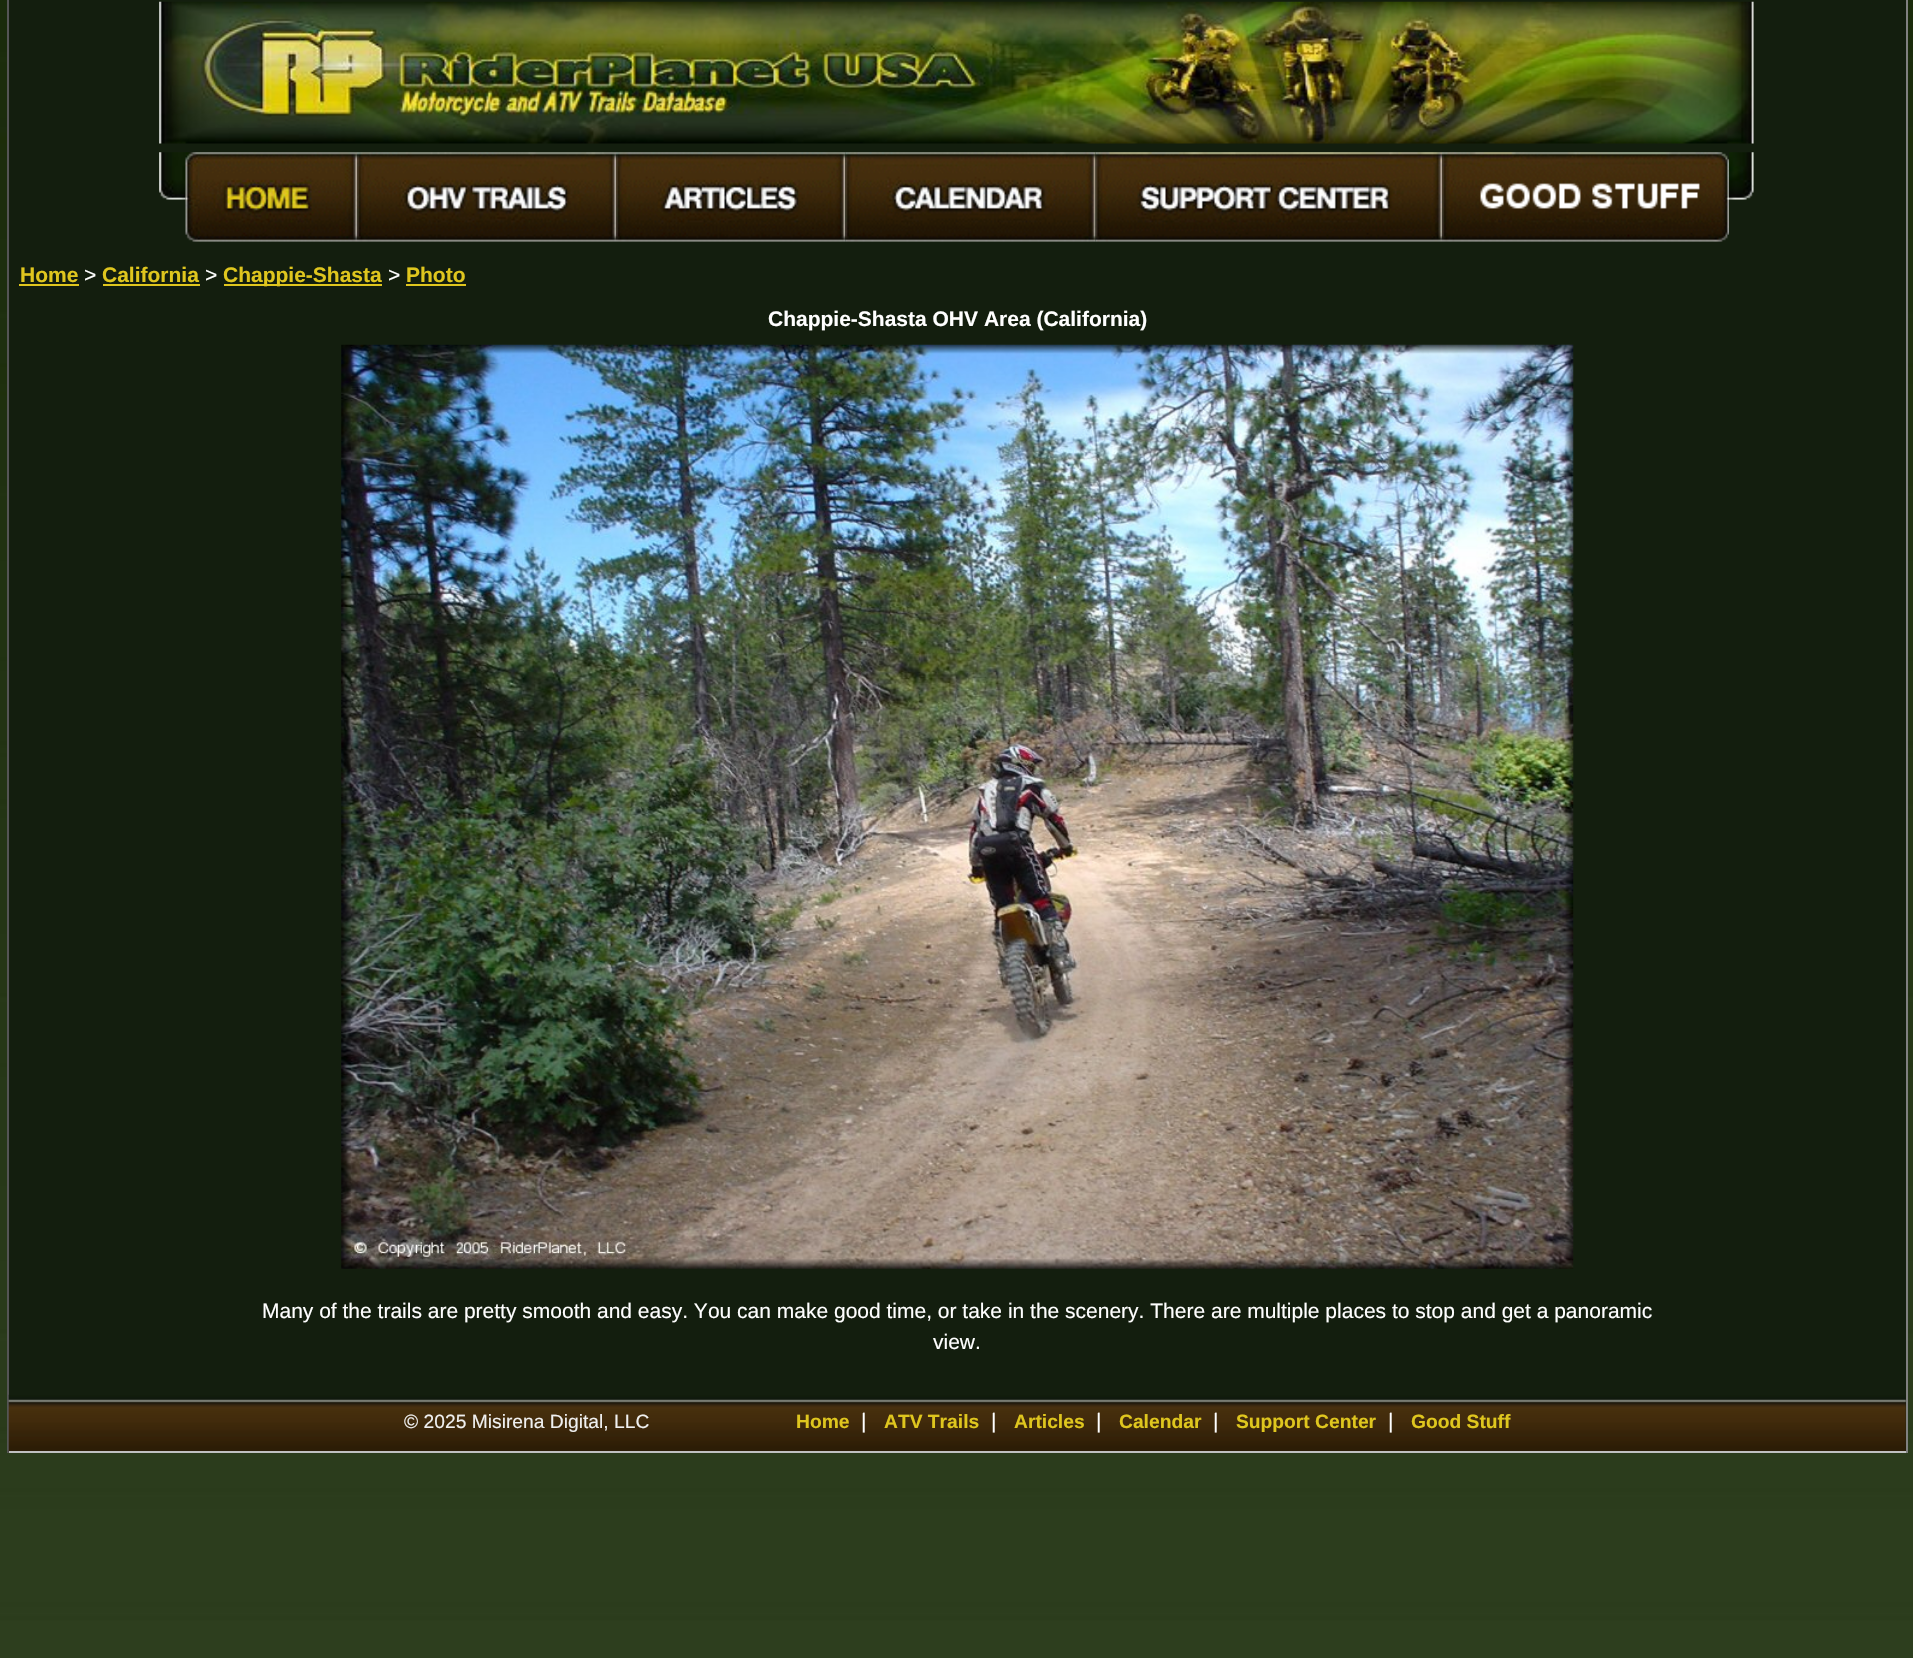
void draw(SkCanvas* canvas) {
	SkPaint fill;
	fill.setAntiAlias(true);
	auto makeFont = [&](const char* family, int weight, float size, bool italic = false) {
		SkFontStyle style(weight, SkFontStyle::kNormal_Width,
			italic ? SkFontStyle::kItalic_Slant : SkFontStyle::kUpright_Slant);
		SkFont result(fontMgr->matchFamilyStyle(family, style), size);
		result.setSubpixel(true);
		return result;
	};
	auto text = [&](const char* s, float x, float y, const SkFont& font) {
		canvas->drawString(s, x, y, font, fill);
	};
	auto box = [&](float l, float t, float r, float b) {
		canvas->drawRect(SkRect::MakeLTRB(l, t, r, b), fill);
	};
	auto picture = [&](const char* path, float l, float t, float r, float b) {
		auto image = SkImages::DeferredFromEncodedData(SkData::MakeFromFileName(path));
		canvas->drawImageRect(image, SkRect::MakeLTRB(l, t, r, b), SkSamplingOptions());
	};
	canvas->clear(0xFFFFFFFF);
	picture("image0.png", 0, 0, 1913, 1658);
	fill.setColor(0xFF131E0E);
	box(9, 0, 1906, 1451);
	fill.setColor(0xFF808080);
	box(1906, 0, 1908, 1453);
	fill.setColor(0xFF555555);
	box(7, 0, 9, 1453);
	picture("image1.png", 159, 1, 1754, 144);
	picture("image2.png", 159, 152, 186, 200);
	picture("image3.png", 185, 152, 357, 242);
	picture("image4.png", 357, 152, 616, 242);
	picture("image5.png", 616, 152, 846, 242);
	picture("image6.png", 845, 152, 1096, 242);
	picture("image7.png", 1095, 152, 1442, 242);
	picture("image8.png", 1442, 152, 1729, 242);
	picture("image9.png", 1729, 152, 1754, 200);
	fill.setColor(0xFFDFC61E);
	box(19, 284, 79, 286);
	box(103, 284, 200, 286);
	box(224, 284, 382, 286);
	box(406, 284, 466, 286);
	picture("image10.png", 341, 344, 1574, 1269);
	picture("image11.png", 8, 1394, 1906, 1453);
	fill.setColor(0xFFC0C0C0);
	box(9, 1451, 1906, 1453);
	auto font1 = makeFont("Liberation Sans", 700, 21);
	fill.setColor(0xFFDFC61E);
	text("Home", 20, 282, font1);
	auto font2 = makeFont("Liberation Sans", 400, 21);
	fill.setColor(0xFFFFFFFF);
	text(">", 84, 282, font2);
	fill.setColor(0xFFDFC61E);
	text("California", 102, 282, font1);
	fill.setColor(0xFFFFFFFF);
	text(">", 205, 282, font2);
	fill.setColor(0xFFDFC61E);
	text("Chappie-Shasta", 223, 282, font1);
	fill.setColor(0xFFFFFFFF);
	text(">", 388, 282, font2);
	fill.setColor(0xFFDFC61E);
	text("Photo", 406, 282, font1);
	fill.setColor(0xFFFFFFFF);
	text("Chappie-Shasta OHV Area (California)", 768, 326, font1);
	text("Many of the trails are pretty smooth and easy. You can make good time, or take in the scenery. There are multiple places to stop and get a panoramic", 262, 1318, font2);
	text("view.", 933, 1349, font2);
	auto font3 = makeFont("Liberation Sans", 400, 19.25f);
	fill.setColor(0xFFF0F0F0);
	text("© 2025 Misirena Digital, LLC", 404, 1428, font3);
	auto font4 = makeFont("Liberation Sans", 700, 19.25f);
	fill.setColor(0xFFDFC61E);
	text("Home", 796, 1428, font4);
	fill.setColor(0xFFFFFFFF);
	text("|", 861, 1428, font2);
	fill.setColor(0xFFDFC61E);
	text("ATV Trails", 884, 1428, font4);
	fill.setColor(0xFFFFFFFF);
	text("|", 991, 1428, font2);
	fill.setColor(0xFFDFC61E);
	text("Articles", 1014, 1428, font4);
	fill.setColor(0xFFFFFFFF);
	text("|", 1096, 1428, font2);
	fill.setColor(0xFFDFC61E);
	text("Calendar", 1119, 1428, font4);
	fill.setColor(0xFFFFFFFF);
	text("|", 1213, 1428, font2);
	fill.setColor(0xFFDFC61E);
	text("Support Center", 1236, 1428, font4);
	fill.setColor(0xFFFFFFFF);
	text("|", 1388, 1428, font2);
	fill.setColor(0xFFDFC61E);
	text("Good Stuff", 1411, 1428, font4);
}
